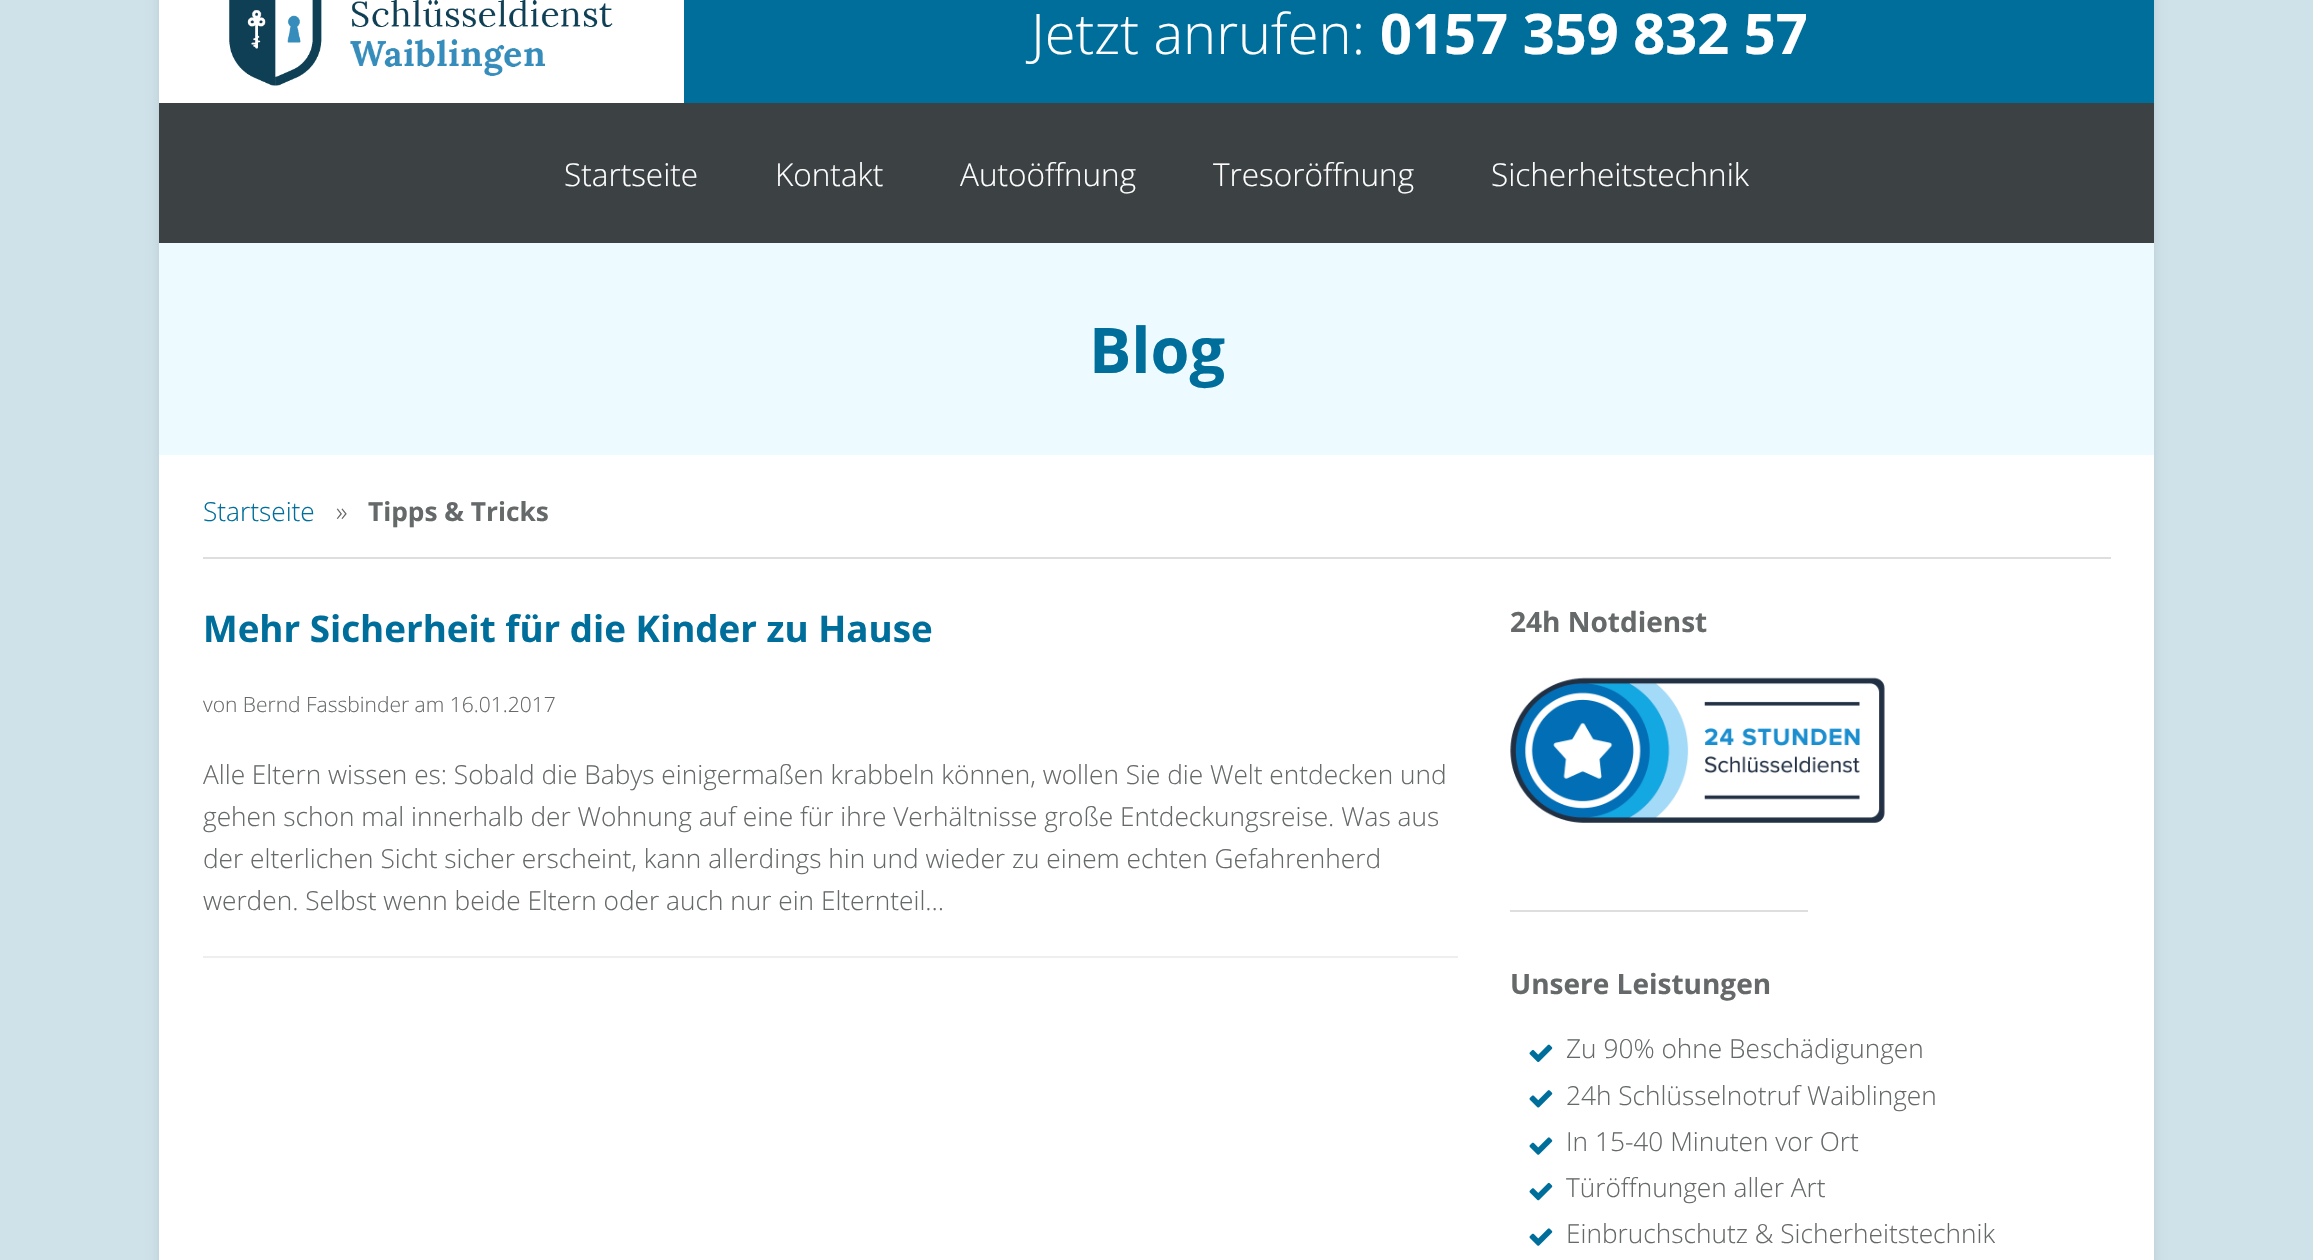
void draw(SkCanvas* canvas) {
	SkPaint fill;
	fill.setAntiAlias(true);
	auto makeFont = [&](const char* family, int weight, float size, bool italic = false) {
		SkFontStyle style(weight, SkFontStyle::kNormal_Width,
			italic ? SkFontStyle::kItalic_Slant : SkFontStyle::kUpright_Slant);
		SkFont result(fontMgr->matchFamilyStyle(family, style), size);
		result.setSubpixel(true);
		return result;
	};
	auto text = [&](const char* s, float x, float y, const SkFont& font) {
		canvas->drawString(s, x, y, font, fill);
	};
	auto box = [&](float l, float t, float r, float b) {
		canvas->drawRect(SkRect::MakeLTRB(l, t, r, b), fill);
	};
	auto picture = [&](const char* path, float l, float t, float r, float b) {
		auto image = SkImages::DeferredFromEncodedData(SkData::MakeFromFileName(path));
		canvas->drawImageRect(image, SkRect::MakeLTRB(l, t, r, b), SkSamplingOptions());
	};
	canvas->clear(0xFFCFE2EA);
	fill.setColor(0x1A000000);
	fill.setMaskFilter(SkMaskFilter::MakeBlur(kNormal_SkBlurStyle, 6));
	canvas->drawRoundRect(SkRect::MakeLTRB(159, -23, 2154, 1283), 5, 5, fill);
	fill.setMaskFilter(nullptr);
	fill.setColor(0xFFFFFFFF);
	box(159, 455, 2154, 1260);
	fill.setColor(0xFF006E9B);
	box(684, 0, 2154, 103);
	fill.setColor(0xFFFFFFFF);
	box(159, 0, 684, 103);
	picture("image0.png", 229, 0, 613, 86);
	fill.setColor(0xFF3C4144);
	box(159, 103, 2154, 243);
	fill.setColor(0xFFEDFAFF);
	box(159, 243, 2154, 455);
	fill.setColor(0xFFDEDEDE);
	box(203, 557, 2111, 559);
	fill.setColor(0xFFEEEEEE);
	box(203, 956, 1458, 958);
	picture("image1.png", 1510, 677, 1885, 823);
	fill.setColor(0xFFDEDEDE);
	box(1510, 910, 1808, 912);
	picture("image2.png", 1529, 1044, 1553, 1062);
	picture("image3.png", 1529, 1090, 1553, 1108);
	picture("image4.png", 1529, 1137, 1553, 1155);
	picture("image5.png", 1529, 1182, 1553, 1201);
	picture("image4.png", 1529, 1228, 1553, 1246);
	auto font1 = makeFont("Open Sans", 300, 56);
	fill.setColor(0xFFFFFFFF);
	text("Jetzt anrufen:", 1031, 54, font1);
	auto font2 = makeFont("Open Sans", 700, 56);
	text("0157 359 832 57", 1380, 54, font2);
	auto font3 = makeFont("Open Sans", 300, 31.5f);
	text("Startseite", 564, 186, font3);
	text("Kontakt", 775, 186, font3);
	text("Autoöffnung", 960, 186, font3);
	text("Tresoröffnung", 1213, 186, font3);
	text("Sicherheitstechnik", 1491, 186, font3);
	auto font4 = makeFont("Open Sans", 700, 63);
	fill.setColor(0xFF006E9B);
	text("Blog", 1089, 373, font4);
	auto font5 = makeFont("Open Sans", 300, 26.25f);
	text("Startseite", 203, 521, font5);
	fill.setColor(0xFF66696A);
	text("»", 336, 521, font5);
	auto font6 = makeFont("Open Sans", 700, 26.25f);
	text("Tipps & Tricks", 368, 521, font6);
	auto font7 = makeFont("Open Sans", 700, 36.75f);
	fill.setColor(0xFF006E9B);
	text("Mehr Sicherheit für die Kinder zu Hause", 203, 642, font7);
	auto font8 = makeFont("Open Sans", 300, 21);
	fill.setColor(0xFF66696A);
	text("von Bernd Fassbinder am 16.01.2017", 203, 712, font8);
	text("Alle Eltern wissen es: Sobald die Babys einigermaßen krabbeln können, wollen Sie die Welt entdecken und", 203, 784, font5);
	text("gehen schon mal innerhalb der Wohnung auf eine für ihre Verhältnisse große Entdeckungsreise. Was aus", 203, 826, font5);
	text("der elterlichen Sicht sicher erscheint, kann allerdings hin und wieder zu einem echten Gefahrenherd", 203, 868, font5);
	text("werden. Selbst wenn beide Eltern oder auch nur ein Elternteil…", 203, 910, font5);
	auto font9 = makeFont("Open Sans", 700, 28);
	text("24h Notdienst", 1510, 632, font9);
	text("Unsere Leistungen", 1510, 994, font9);
	text("Zu 90% ohne Beschädigungen", 1566, 1058, font5);
	text("24h Schlüsselnotruf Waiblingen", 1566, 1105, font5);
	text("In 15-40 Minuten vor Ort", 1566, 1151, font5);
	text("Türöffnungen aller Art", 1566, 1197, font5);
	text("Einbruchschutz & Sicherheitstechnik", 1566, 1243, font5);
}
